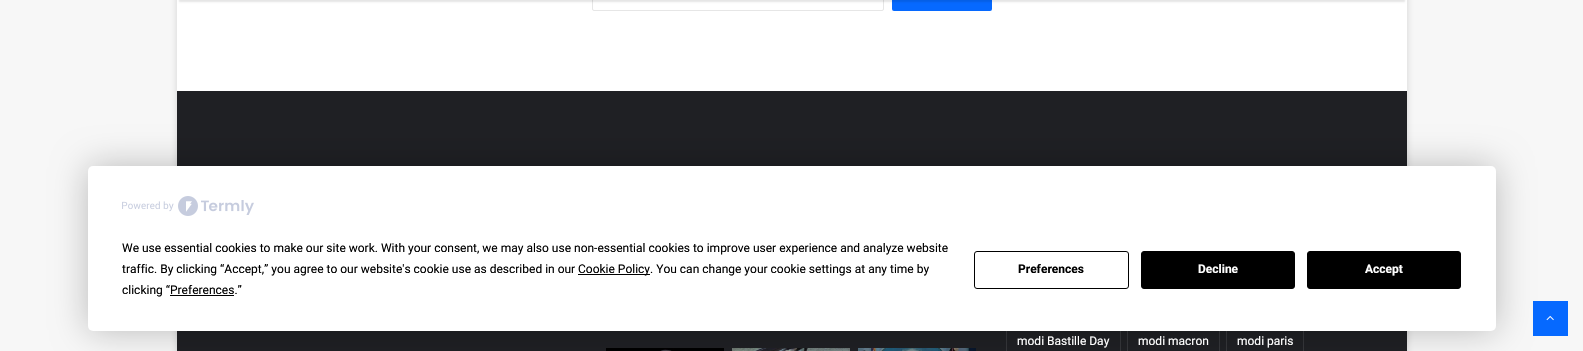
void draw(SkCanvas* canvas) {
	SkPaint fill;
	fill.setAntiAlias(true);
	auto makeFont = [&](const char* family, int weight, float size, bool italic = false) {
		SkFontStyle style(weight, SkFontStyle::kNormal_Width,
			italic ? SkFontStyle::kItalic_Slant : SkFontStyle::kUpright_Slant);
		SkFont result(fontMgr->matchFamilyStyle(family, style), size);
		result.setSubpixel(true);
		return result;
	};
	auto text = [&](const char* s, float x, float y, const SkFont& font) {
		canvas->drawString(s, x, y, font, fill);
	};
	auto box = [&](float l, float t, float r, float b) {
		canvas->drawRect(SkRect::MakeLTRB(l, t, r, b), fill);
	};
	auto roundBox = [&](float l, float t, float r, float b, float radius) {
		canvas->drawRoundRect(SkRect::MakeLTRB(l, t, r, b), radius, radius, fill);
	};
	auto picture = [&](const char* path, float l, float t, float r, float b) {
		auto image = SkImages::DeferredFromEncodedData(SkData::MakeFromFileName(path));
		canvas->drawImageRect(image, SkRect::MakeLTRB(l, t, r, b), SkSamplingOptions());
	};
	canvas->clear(0xFFF7F7F7);
	fill.setColor(0xFF0669FF);
	box(1533, 301, 1568, 336);
	picture("image1.png", 1546, 315, 1554, 321);
	fill.setColor(0x80ABABAB);
	fill.setMaskFilter(SkMaskFilter::MakeBlur(kNormal_SkBlurStyle, 3.5f));
	canvas->drawRect(SkRect::MakeLTRB(177, -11, 1407, 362), fill);
	fill.setMaskFilter(nullptr);
	fill.setColor(0xFF1F2024);
	box(177, 91, 1407, 351);
	fill.setStyle(SkPaint::kStroke_Style);
	fill.setStrokeWidth(1);
	fill.setColor(0xFF35363A);
	canvas->drawRect(SkRect::MakeLTRB(1006.5f, 327.5f, 1120.5f, 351.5f), fill);
	canvas->drawRect(SkRect::MakeLTRB(1127.5f, 327.5f, 1219.5f, 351.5f), fill);
	canvas->drawRect(SkRect::MakeLTRB(1226.5f, 327.5f, 1303.5f, 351.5f), fill);
	picture("image2.png", 606, 348, 724, 351);
	picture("image3.png", 732, 348, 850, 351);
	picture("image4.png", 858, 348, 976, 351);
	fill.setStyle(SkPaint::kFill_Style);
	fill.setColor(0x40000000);
	fill.setMaskFilter(SkMaskFilter::MakeBlur(kNormal_SkBlurStyle, 17.5f));
	canvas->drawRoundRect(SkRect::MakeLTRB(88, 166, 1496, 331), 5, 5, fill);
	fill.setMaskFilter(nullptr);
	fill.setColor(0xFFFFFFFF);
	roundBox(88, 166, 1496, 331, 5);
	picture("image0.png", 122, 196, 254, 216);
	fill.setColor(0xFF000000);
	box(578, 274, 650, 275);
	box(170, 295, 234, 296);
	fill.setStyle(SkPaint::kStroke_Style);
	canvas->drawRoundRect(SkRect::MakeLTRB(974.5f, 251.5f, 1128.5f, 288.5f), 2.5f, 2.5f, fill);
	fill.setStyle(SkPaint::kFill_Style);
	canvas->drawRoundRect(SkRect::MakeLTRB(1141.5f, 251.5f, 1294.5f, 288.5f), 2.5f, 2.5f, fill);
	fill.setStyle(SkPaint::kStroke_Style);
	canvas->drawRoundRect(SkRect::MakeLTRB(1141.5f, 251.5f, 1294.5f, 288.5f), 2.5f, 2.5f, fill);
	fill.setStyle(SkPaint::kFill_Style);
	canvas->drawRoundRect(SkRect::MakeLTRB(1307.5f, 251.5f, 1460.5f, 288.5f), 2.5f, 2.5f, fill);
	fill.setStyle(SkPaint::kStroke_Style);
	canvas->drawRoundRect(SkRect::MakeLTRB(1307.5f, 251.5f, 1460.5f, 288.5f), 2.5f, 2.5f, fill);
	fill.setStyle(SkPaint::kFill_Style);
	fill.setColor(0xFFFFFFFF);
	box(177, 0, 1407, 91);
	fill.setStyle(SkPaint::kStroke_Style);
	fill.setColor(0xFFE6E6E6);
	canvas->drawRoundRect(SkRect::MakeLTRB(592.5f, -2.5f, 883.5f, 10.5f), 1.5f, 1.5f, fill);
	fill.setStyle(SkPaint::kFill_Style);
	fill.setColor(0xFF0669FF);
	roundBox(892, -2, 992, 11, 2);
	fill.setColor(0x1A000000);
	fill.setMaskFilter(SkMaskFilter::MakeBlur(kNormal_SkBlurStyle, 1));
	canvas->drawRect(SkRect::MakeLTRB(179, -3, 1405, 2), fill);
	fill.setMaskFilter(nullptr);
	auto font1 = makeFont("Roboto", 400, 12);
	fill.setColor(0xFF000000);
	text("We use essential cookies to make our site work. With your consent, we may also use non-essential cookies to improve user experience and analyze website", 122, 252, font1);
	text("traffic. By clicking “Accept,” you agree to our website's cookie use as described in our", 122, 273, font1);
	text("Cookie Policy. You can change your cookie settings at any time by", 578, 273, font1);
	text("clicking “Preferences.”", 122, 294, font1);
	auto font2 = makeFont("Roboto", 700, 12);
	text("Preferences", 1018, 273, font2);
	fill.setColor(0xFFFFFFFF);
	text("Decline", 1198, 273, font2);
	text("Accept", 1365, 273, font2);
	text("modi Bastille Day", 1017, 345, font1);
	text("modi macron", 1138, 345, font1);
	text("modi paris", 1237, 345, font1);
}
